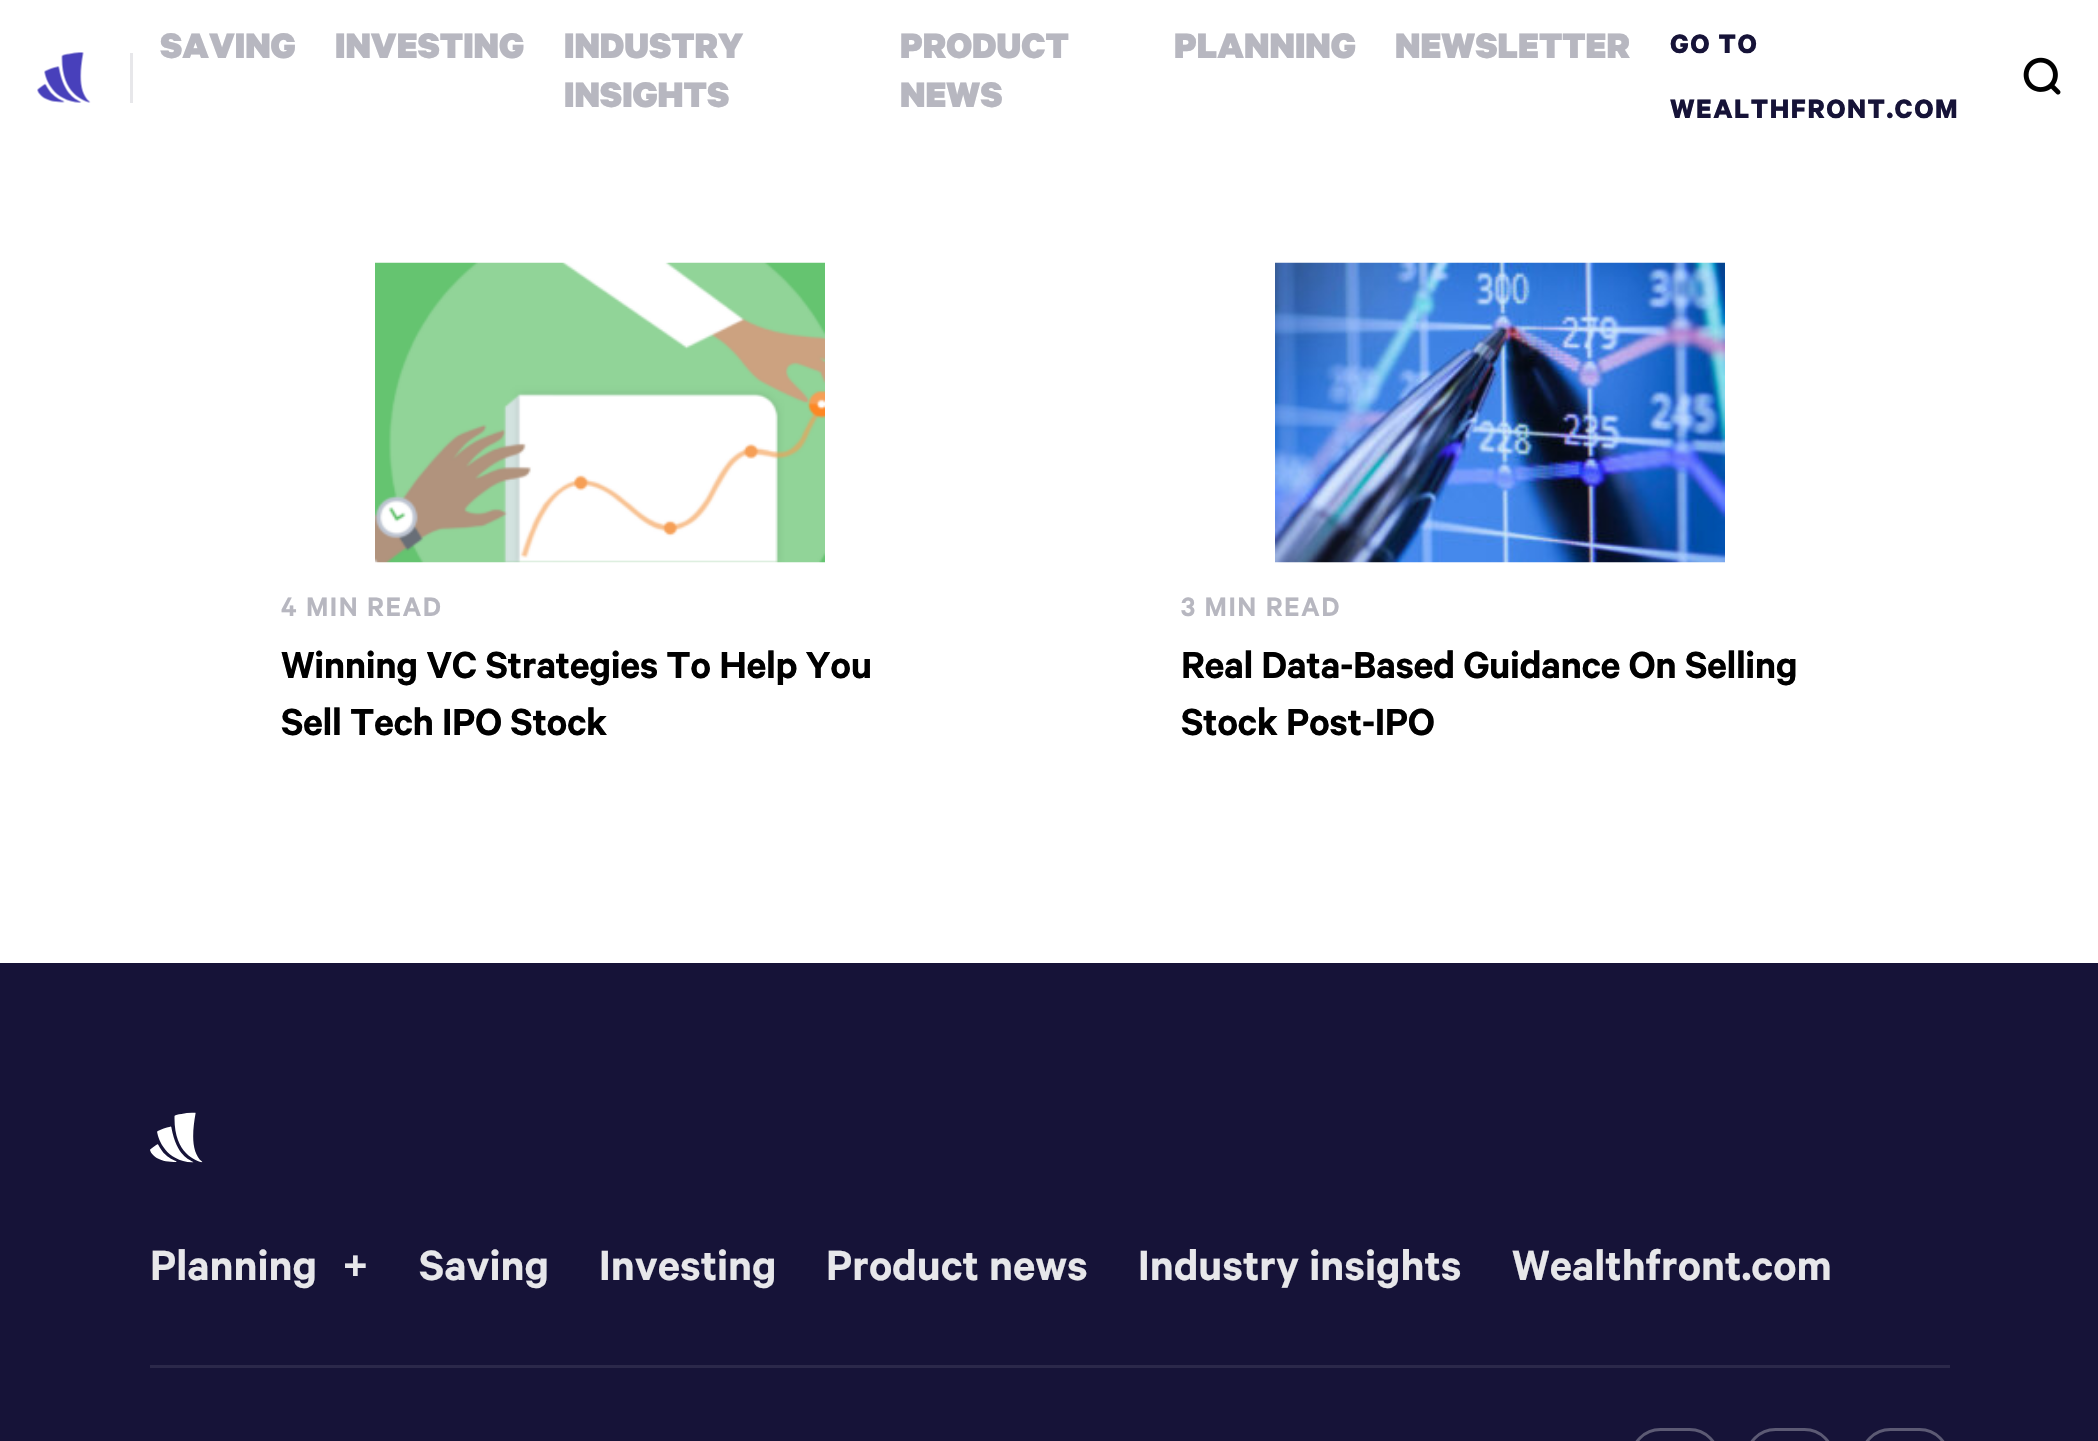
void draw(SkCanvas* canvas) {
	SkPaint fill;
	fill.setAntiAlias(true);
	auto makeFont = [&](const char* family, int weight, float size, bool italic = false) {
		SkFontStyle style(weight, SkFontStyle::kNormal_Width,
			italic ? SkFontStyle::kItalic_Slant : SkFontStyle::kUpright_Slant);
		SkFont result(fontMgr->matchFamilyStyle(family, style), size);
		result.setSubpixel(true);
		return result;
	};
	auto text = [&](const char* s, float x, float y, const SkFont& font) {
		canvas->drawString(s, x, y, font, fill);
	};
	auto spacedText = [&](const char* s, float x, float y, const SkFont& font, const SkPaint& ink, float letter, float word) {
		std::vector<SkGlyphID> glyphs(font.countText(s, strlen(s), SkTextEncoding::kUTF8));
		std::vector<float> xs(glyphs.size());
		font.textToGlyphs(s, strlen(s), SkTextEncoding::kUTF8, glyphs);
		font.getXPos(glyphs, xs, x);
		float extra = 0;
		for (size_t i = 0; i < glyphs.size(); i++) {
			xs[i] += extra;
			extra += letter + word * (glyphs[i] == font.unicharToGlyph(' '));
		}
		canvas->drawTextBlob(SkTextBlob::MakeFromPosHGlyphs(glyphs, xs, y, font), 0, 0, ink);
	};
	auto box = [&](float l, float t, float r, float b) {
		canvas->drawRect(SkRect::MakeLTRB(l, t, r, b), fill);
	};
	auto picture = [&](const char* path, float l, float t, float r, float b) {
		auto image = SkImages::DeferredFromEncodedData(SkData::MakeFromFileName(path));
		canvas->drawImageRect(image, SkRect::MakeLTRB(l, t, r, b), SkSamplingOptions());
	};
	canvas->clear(0xFFFFFFFF);
	picture("image0.png", 37, 52, 91, 103);
	fill.setColor(0xFFE7E7EA);
	box(130, 53, 133, 103);
	picture("image1.png", 2023, 57, 2061, 95);
	picture("image2.png", 375, 262, 825, 563);
	picture("image3.png", 1275, 262, 1725, 563);
	fill.setColor(0xFF161338);
	box(0, 963, 2098, 1441);
	picture("image4.png", 150, 1112, 203, 1163);
	fill.setColor(0xFF2B284A);
	box(150, 1365, 1950, 1368);
	fill.setStyle(SkPaint::kStroke_Style);
	fill.setStrokeWidth(3);
	fill.setColor(0xFF5C5A74);
	canvas->drawRoundRect(SkRect::MakeLTRB(1631.5f, 1429.5f, 1718.5f, 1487.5f), 43.5f, 43.5f, fill);
	canvas->drawRoundRect(SkRect::MakeLTRB(1746.5f, 1429.5f, 1833.5f, 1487.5f), 43.5f, 43.5f, fill);
	canvas->drawRoundRect(SkRect::MakeLTRB(1861.5f, 1429.5f, 1948.5f, 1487.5f), 43.5f, 43.5f, fill);
	auto font1 = makeFont("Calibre", 900, 40);
	fill.setStyle(SkPaint::kFill_Style);
	fill.setColor(0xFFB7B7C0);
	text("SAVING", 160, 58, font1);
	text("INVESTING", 335, 58, font1);
	text("INDUSTRY", 564, 58, font1);
	text("INSIGHTS", 564, 107, font1);
	text("PRODUCT", 900, 58, font1);
	text("NEWS", 900, 107, font1);
	text("PLANNING", 1174, 58, font1);
	text("NEWSLETTER", 1395, 58, font1);
	auto font2 = makeFont("Calibre", 700, 30);
	fill.setColor(0xFF161338);
	spacedText("GO TO", 1670, 53, font2, fill, 1.5f, 0);
	spacedText("WEALTHFRONT.COM", 1670, 118, font2, fill, 1.5f, 0);
	auto font3 = makeFont("Calibre", 600, 30);
	fill.setColor(0xFFB7B7C0);
	spacedText("4 MIN READ", 281, 616, font3, fill, 1.5f, 0);
	auto font4 = makeFont("Calibre", 600, 42.5f);
	fill.setColor(0xFF000000);
	spacedText("Winning VC Strategies To Help You", 281, 678, font4, fill, -0.45f, 0);
	spacedText("Sell Tech IPO Stock", 281, 735, font4, fill, -0.45f, 0);
	fill.setColor(0xFFB7B7C0);
	spacedText("3 MIN READ", 1181, 616, font3, fill, 1.5f, 0);
	fill.setColor(0xFF000000);
	spacedText("Real Data-Based Guidance On Selling", 1181, 678, font4, fill, -0.45f, 0);
	spacedText("Stock Post-IPO", 1181, 735, font4, fill, -0.45f, 0);
	auto font5 = makeFont("Calibre", 600, 47.5f);
	fill.setColor(0xFFE7E7EA);
	text("Planning", 150, 1280, font5);
	text("+", 342, 1280, font5);
	text("Saving", 419, 1280, font5);
	text("Investing", 599, 1280, font5);
	text("Product news", 826, 1280, font5);
	text("Industry insights", 1138, 1280, font5);
	text("Wealthfront.com", 1512, 1280, font5);
}
